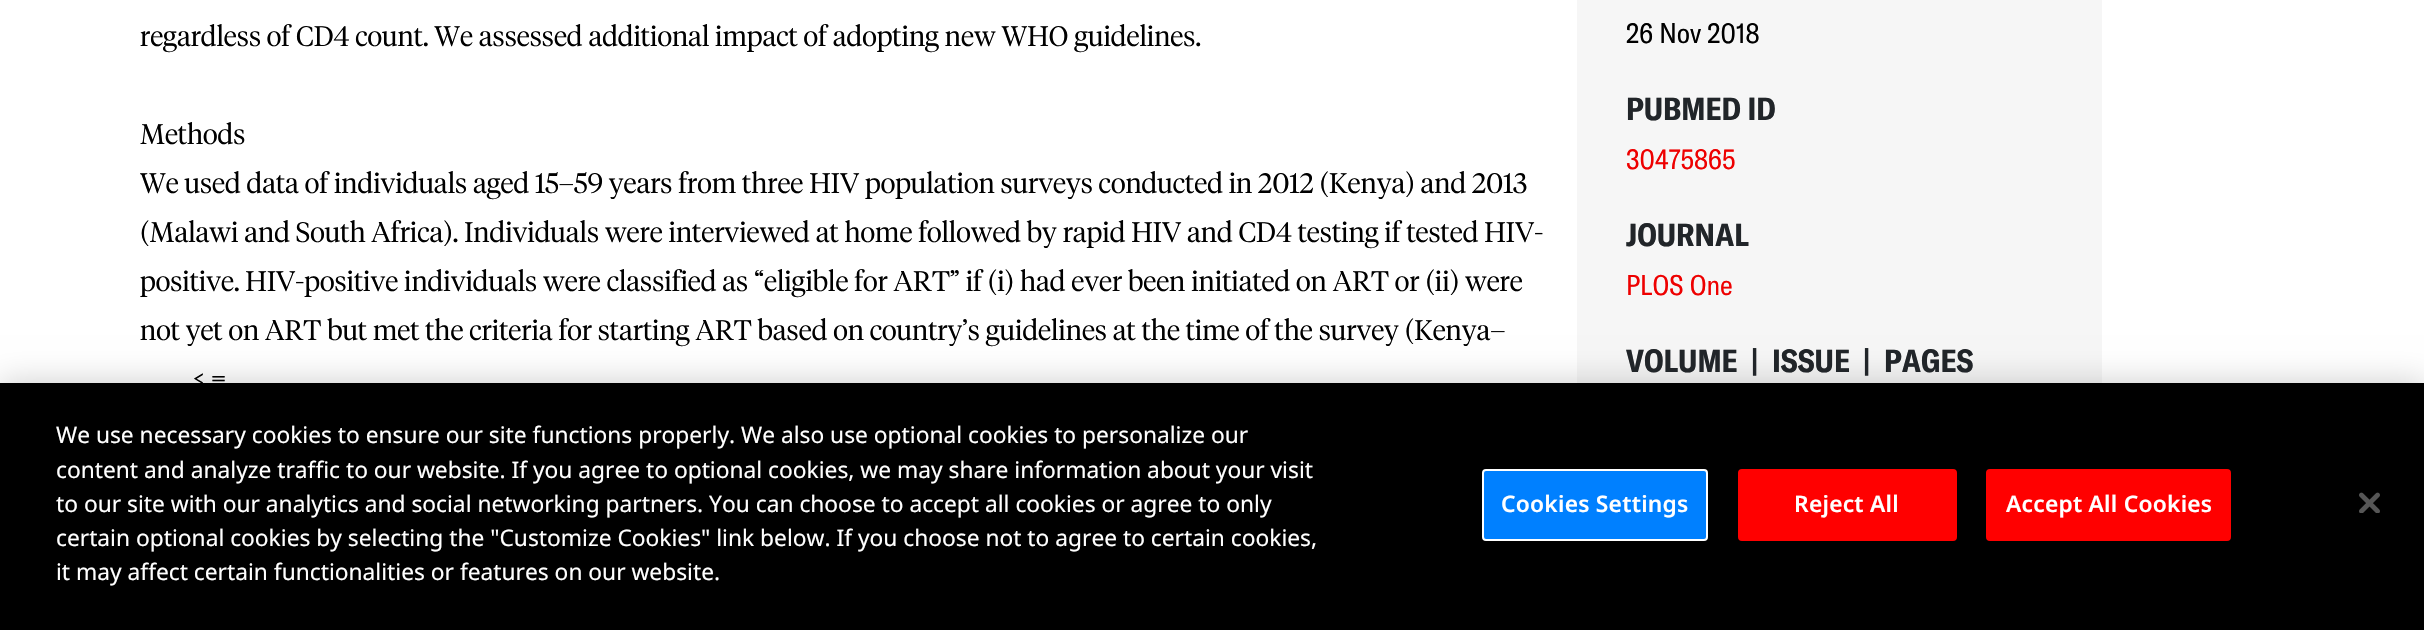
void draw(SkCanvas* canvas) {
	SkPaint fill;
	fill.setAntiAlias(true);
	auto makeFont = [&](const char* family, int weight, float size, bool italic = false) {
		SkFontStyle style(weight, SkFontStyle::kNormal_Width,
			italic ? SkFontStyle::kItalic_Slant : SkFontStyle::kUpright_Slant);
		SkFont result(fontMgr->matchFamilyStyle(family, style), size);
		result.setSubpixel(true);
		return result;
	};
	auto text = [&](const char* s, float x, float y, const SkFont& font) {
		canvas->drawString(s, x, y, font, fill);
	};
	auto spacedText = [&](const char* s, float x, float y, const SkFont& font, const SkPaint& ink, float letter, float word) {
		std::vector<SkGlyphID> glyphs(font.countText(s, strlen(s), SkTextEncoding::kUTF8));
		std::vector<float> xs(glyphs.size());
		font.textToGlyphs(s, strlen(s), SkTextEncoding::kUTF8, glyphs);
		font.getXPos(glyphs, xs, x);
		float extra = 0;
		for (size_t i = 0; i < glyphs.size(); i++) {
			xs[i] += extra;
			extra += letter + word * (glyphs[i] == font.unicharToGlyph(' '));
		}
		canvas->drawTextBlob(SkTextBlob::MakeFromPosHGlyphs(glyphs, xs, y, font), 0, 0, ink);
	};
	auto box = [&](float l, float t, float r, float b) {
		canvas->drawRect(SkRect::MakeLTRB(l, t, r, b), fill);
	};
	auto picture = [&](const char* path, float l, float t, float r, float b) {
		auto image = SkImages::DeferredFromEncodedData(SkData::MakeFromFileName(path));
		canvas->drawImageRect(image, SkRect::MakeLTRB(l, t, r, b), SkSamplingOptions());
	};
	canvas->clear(0xFFFFFFFF);
	fill.setColor(0xFFF6F6F6);
	box(1577, 0, 2102, 383);
	fill.setColor(0x33000000);
	fill.setMaskFilter(SkMaskFilter::MakeBlur(kNormal_SkBlurStyle, 16));
	canvas->drawRect(SkRect::MakeLTRB(0, 383, 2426, 630), fill);
	fill.setMaskFilter(nullptr);
	fill.setColor(0xFF000000);
	box(0, 383, 2424, 630);
	fill.setColor(0xFF0080FF);
	canvas->drawRoundRect(SkRect::MakeLTRB(1483, 470, 1707, 540), 3, 3, fill);
	fill.setStyle(SkPaint::kStroke_Style);
	fill.setStrokeWidth(2);
	fill.setColor(0xFFFFFFFF);
	canvas->drawRoundRect(SkRect::MakeLTRB(1483, 470, 1707, 540), 3, 3, fill);
	fill.setStyle(SkPaint::kFill_Style);
	fill.setColor(0xFFFF0000);
	canvas->drawRoundRect(SkRect::MakeLTRB(1739, 470, 1956, 540), 3, 3, fill);
	fill.setStyle(SkPaint::kStroke_Style);
	canvas->drawRoundRect(SkRect::MakeLTRB(1739, 470, 1956, 540), 3, 3, fill);
	fill.setStyle(SkPaint::kFill_Style);
	canvas->drawRoundRect(SkRect::MakeLTRB(1987, 470, 2230, 540), 3, 3, fill);
	fill.setStyle(SkPaint::kStroke_Style);
	canvas->drawRoundRect(SkRect::MakeLTRB(1987, 470, 2230, 540), 3, 3, fill);
	picture("image0.png", 2359, 492, 2380, 513);
	auto font1 = makeFont("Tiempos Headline", 300, 28);
	fill.setStyle(SkPaint::kFill_Style);
	fill.setColor(0xFF000000);
	text("regardless of CD4 count. We assessed additional impact of adopting new WHO guidelines.", 140, 46, font1);
	text("Methods", 140, 144, font1);
	text("We used data of individuals aged 15–59 years from three HIV population surveys conducted in 2012 (Kenya) and 2013", 140, 193, font1);
	text("(Malawi and South Africa). Individuals were interviewed at home followed by rapid HIV and CD4 testing if tested HIV-", 140, 242, font1);
	text("positive. HIV-positive individuals were classified as “eligible for ART” if (i) had ever been initiated on ART or (ii) were", 140, 291, font1);
	text("not yet on ART but met the criteria for starting ART based on country’s guidelines at the time of the survey (Kenya–", 140, 340, font1);
	text("< =", 193, 389, font1);
	auto font2 = makeFont("GT America", 400, 28);
	text("26 Nov 2018", 1626, 43, font2);
	auto font3 = makeFont("GT America", 700, 31.5f);
	fill.setColor(0xFF212529);
	text("PUBMED ID", 1626, 120, font3);
	fill.setColor(0xFFEE0000);
	text("30475865", 1626, 169, font2);
	fill.setColor(0xFF212529);
	text("JOURNAL", 1626, 246, font3);
	fill.setColor(0xFFEE0000);
	text("PLOS One", 1626, 295, font2);
	fill.setColor(0xFF212529);
	text("VOLUME", 1626, 372, font3);
	text("|", 1751, 372, font3);
	text("ISSUE", 1772, 372, font3);
	text("|", 1863, 372, font3);
	text("PAGES", 1884, 372, font3);
	auto font4 = makeFont("Noto Sans", 400, 22.75f);
	fill.setColor(0xFFFFFFFF);
	text("We use necessary cookies to ensure our site functions properly. We also use optional cookies to personalize our", 56, 443, font4);
	text("content and analyze traffic to our website. If you agree to optional cookies, we may share information about your visit", 56, 478, font4);
	text("to our site with our analytics and social networking partners. You can choose to accept all cookies or agree to only", 56, 512, font4);
	text("certain optional cookies by selecting the \"Customize Cookies\" link below. If you choose not to agree to certain cookies,", 56, 546, font4);
	text("it may affect certain functionalities or features on our website.", 56, 580, font4);
	auto font5 = makeFont("Noto Sans", 600, 22.75f);
	spacedText("Cookies Settings", 1501, 512, font5, fill, 0.25f, 0);
	spacedText("Reject All", 1794, 512, font5, fill, 0.25f, 0);
	spacedText("Accept All Cookies", 2006, 512, font5, fill, 0.25f, 0);
}
